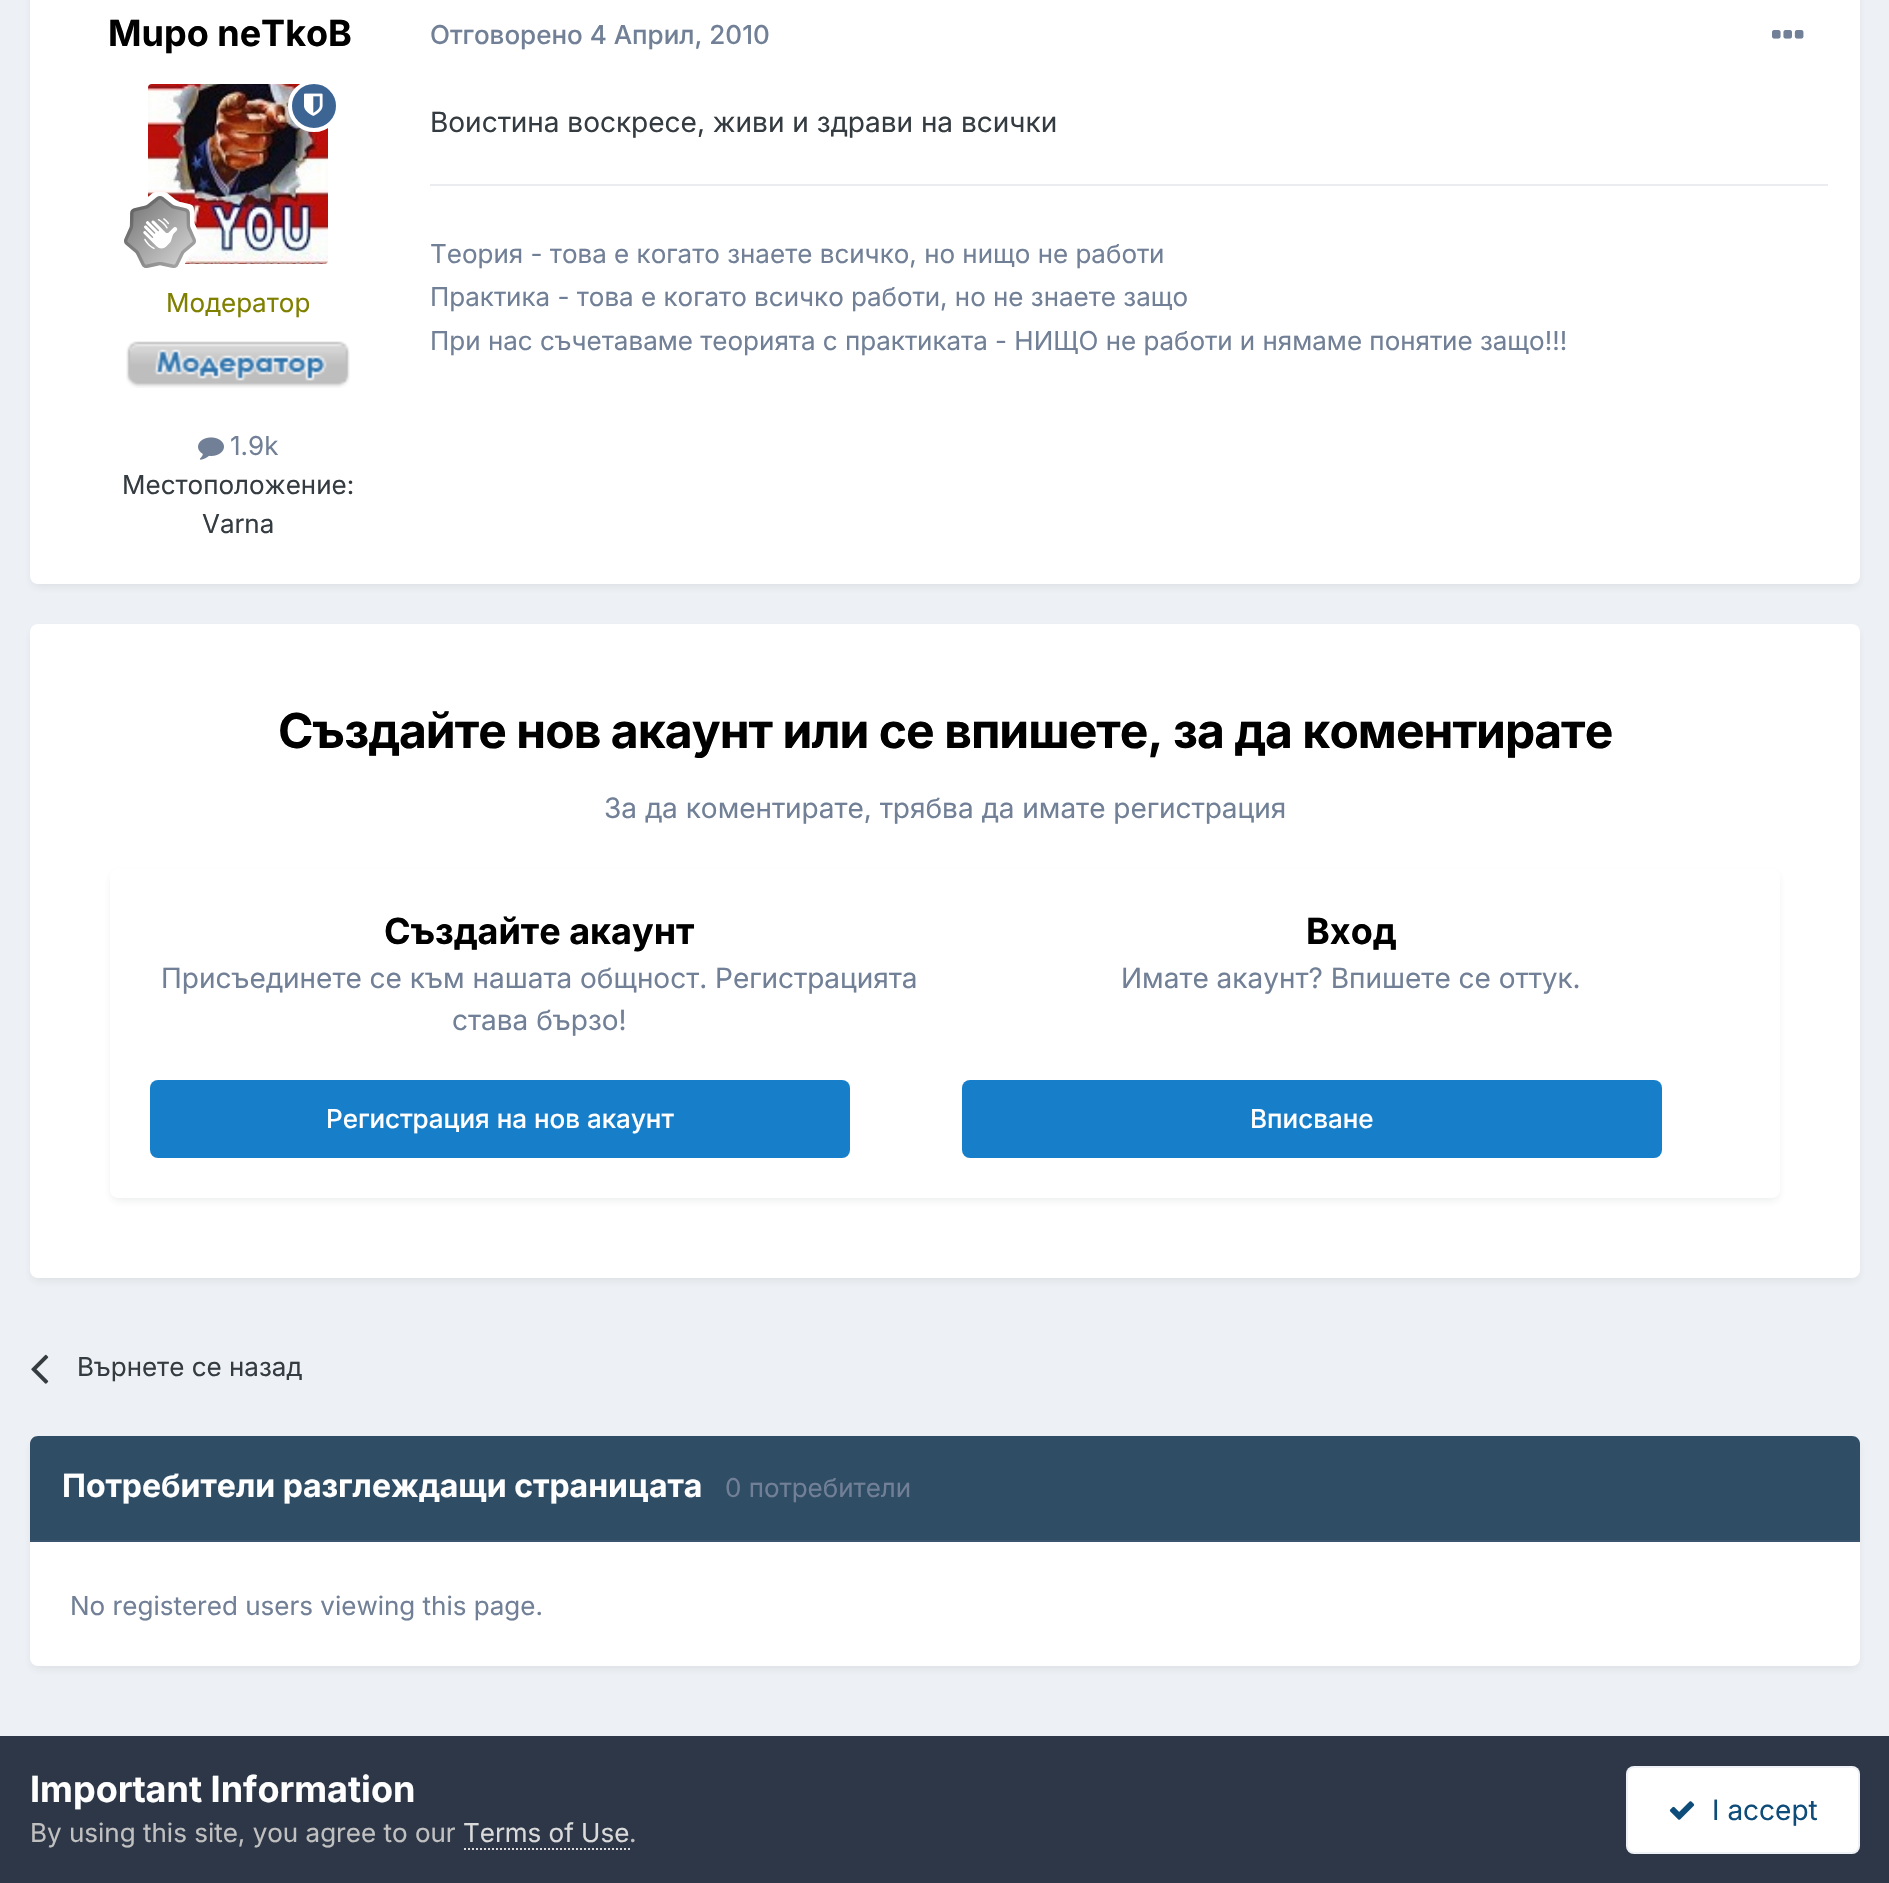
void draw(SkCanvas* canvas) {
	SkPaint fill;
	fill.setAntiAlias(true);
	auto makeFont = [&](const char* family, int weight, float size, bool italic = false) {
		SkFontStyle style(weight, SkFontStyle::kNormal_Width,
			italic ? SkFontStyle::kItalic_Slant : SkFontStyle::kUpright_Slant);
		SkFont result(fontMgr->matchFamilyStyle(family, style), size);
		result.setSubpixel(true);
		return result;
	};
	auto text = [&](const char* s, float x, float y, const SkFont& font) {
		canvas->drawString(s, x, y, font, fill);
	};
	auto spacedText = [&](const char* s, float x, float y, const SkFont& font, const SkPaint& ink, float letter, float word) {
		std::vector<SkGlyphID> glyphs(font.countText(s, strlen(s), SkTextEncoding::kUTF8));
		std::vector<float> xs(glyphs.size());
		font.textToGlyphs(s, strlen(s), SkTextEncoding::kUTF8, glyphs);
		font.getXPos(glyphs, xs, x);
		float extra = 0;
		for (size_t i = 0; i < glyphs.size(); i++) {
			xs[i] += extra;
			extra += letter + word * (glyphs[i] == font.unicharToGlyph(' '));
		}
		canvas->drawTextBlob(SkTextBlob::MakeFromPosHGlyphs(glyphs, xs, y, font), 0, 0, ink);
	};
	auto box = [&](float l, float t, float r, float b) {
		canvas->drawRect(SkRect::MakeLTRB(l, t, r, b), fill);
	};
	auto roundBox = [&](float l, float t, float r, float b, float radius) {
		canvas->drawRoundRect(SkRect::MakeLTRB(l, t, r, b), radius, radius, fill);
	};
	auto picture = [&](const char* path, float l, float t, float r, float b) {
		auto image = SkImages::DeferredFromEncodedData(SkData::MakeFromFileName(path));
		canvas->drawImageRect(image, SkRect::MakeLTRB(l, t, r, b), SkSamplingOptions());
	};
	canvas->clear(0xFFEDF0F4);
	fill.setColor(0x1A2D3748);
	fill.setMaskFilter(SkMaskFilter::MakeBlur(kNormal_SkBlurStyle, 4));
	canvas->drawRoundRect(SkRect::MakeLTRB(32, -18, 1858, 586), 6, 6, fill);
	fill.setMaskFilter(nullptr);
	fill.setColor(0xFFFFFFFF);
	roundBox(30, -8, 1860, 584, 8);
	picture("image1.png", 148, 84, 328, 264);
	fill.setColor(0xFF3D6594);
	canvas->drawCircle(314, 106, 24, fill);
	fill.setStyle(SkPaint::kStroke_Style);
	fill.setStrokeWidth(4);
	fill.setColor(0xFFFFFFFF);
	canvas->drawCircle(314, 106, 24, fill);
	picture("image0.png", 304, 93, 323, 116);
	picture("image2.png", 124, 192, 200, 268);
	picture("image3.png", 126, 341, 350, 388);
	picture("image4.png", 198, 437, 224, 460);
	picture("image5.png", 1772, 30, 1804, 39);
	fill.setStyle(SkPaint::kFill_Style);
	fill.setColor(0xFFEAECEF);
	box(430, 184, 1828, 186);
	fill.setColor(0x1A2D3748);
	fill.setMaskFilter(SkMaskFilter::MakeBlur(kNormal_SkBlurStyle, 4));
	canvas->drawRoundRect(SkRect::MakeLTRB(32, 630, 1858, 1280), 6, 6, fill);
	fill.setMaskFilter(nullptr);
	fill.setColor(0xFFFFFFFF);
	roundBox(30, 624, 1860, 1278, 8);
	fill.setColor(0x1A2D3748);
	fill.setMaskFilter(SkMaskFilter::MakeBlur(kNormal_SkBlurStyle, 4));
	canvas->drawRoundRect(SkRect::MakeLTRB(112, 874, 1778, 1200), 6, 6, fill);
	fill.setMaskFilter(nullptr);
	fill.setColor(0xFFFFFFFF);
	roundBox(110, 868, 1780, 1198, 8);
	fill.setColor(0xFF177EC9);
	roundBox(150, 1080, 850, 1158, 8);
	roundBox(962, 1080, 1662, 1158, 8);
	picture("image6.png", 31, 1354, 49, 1384);
	fill.setColor(0x1A2D3748);
	fill.setMaskFilter(SkMaskFilter::MakeBlur(kNormal_SkBlurStyle, 4));
	canvas->drawRoundRect(SkRect::MakeLTRB(32, 1442, 1858, 1668), 6, 6, fill);
	fill.setMaskFilter(nullptr);
	fill.setColor(0xFFFFFFFF);
	roundBox(30, 1436, 1860, 1666, 8);
	fill.setColor(0xFF304D66);
	canvas->drawPath(SkPathBuilder().moveTo(38, 1436).lineTo(1852, 1436).cubicTo(1856.5f, 1436, 1860, 1439.5f, 1860, 1444).lineTo(1860, 1542).lineTo(30, 1542).lineTo(30, 1444).cubicTo(30, 1439.5f, 33.5f, 1436, 38, 1436).close().detach(), fill);
	fill.setColor(0xFF3A556D);
	box(30, 1540, 1860, 1542);
	fill.setColor(0xFF2D3748);
	box(0, 1736, 1889, 1883);
	fill.setStyle(SkPaint::kStroke_Style);
	fill.setStrokeWidth(2);
	fill.setColor(0xFFDADADA);
	fill.setPathEffect(SkDashPathEffect::Make({{2, 2}}, 0));
	canvas->drawPath(SkPathBuilder().moveTo(464, 1849).lineTo(630, 1849).detach(), fill);
	fill.setPathEffect(nullptr);
	fill.setStyle(SkPaint::kFill_Style);
	fill.setColor(0xFFFFFFFF);
	roundBox(1626, 1766, 1860, 1854, 8);
	fill.setStyle(SkPaint::kStroke_Style);
	fill.setColor(0x120E4C79);
	canvas->drawRoundRect(SkRect::MakeLTRB(1627, 1767, 1859, 1853), 7, 7, fill);
	picture("image7.png", 1669, 1801, 1695, 1820);
	auto font1 = makeFont("Inter", 700, 36);
	fill.setStyle(SkPaint::kFill_Style);
	fill.setColor(0xFF000000);
	text("Mupo neTkoB", 108, 46, font1);
	auto font2 = makeFont("Inter", 400, 26);
	fill.setColor(0xFF808000);
	text("Модератор", 166, 312, font2);
	fill.setColor(0xFF718096);
	text("1.9k", 230, 455, font2);
	fill.setColor(0xFF353C41);
	text("Местоположение:", 122, 494, font2);
	text("Varna", 202, 533, font2);
	auto font3 = makeFont("Inter", 500, 26);
	fill.setColor(0xFF718096);
	text("Отговорено 4 Април, 2010", 430, 44, font3);
	auto font4 = makeFont("Inter", 400, 28);
	fill.setColor(0xFF353C41);
	text("Воистина воскресе, живи и здрави на всички", 430, 132, font4);
	fill.setColor(0xFF718096);
	text("Теория - това е когато знаете всичко, но нищо не работи", 430, 263, font2);
	text("Практика - това е когато всичко работи, но не знаете защо", 430, 306, font2);
	text("При нас съчетаваме теорията с практиката - НИЩО не работи и нямаме понятие защо!!!", 430, 350, font2);
	auto font5 = makeFont("Inter", 700, 48);
	fill.setColor(0xFF000000);
	spacedText("Създайте нов акаунт или се впишете, за да коментирате", 278, 748, font5, fill, -0.95f, 0);
	fill.setColor(0xFF718096);
	text("За да коментирате, трябва да имате регистрация", 604, 818, font4);
	fill.setColor(0xFF000000);
	text("Създайте акаунт", 384, 944, font1);
	fill.setColor(0xFF718096);
	text("Присъединете се към нашата общност. Регистрацията", 161, 988, font4);
	text("става бързо!", 452, 1030, font4);
	fill.setColor(0xFFFFFFFF);
	text("Регистрация на нов акаунт", 326, 1128, font3);
	fill.setColor(0xFF000000);
	text("Вход", 1306, 944, font1);
	fill.setColor(0xFF718096);
	text("Имате акаунт? Впишете се оттук.", 1121, 988, font4);
	fill.setColor(0xFFFFFFFF);
	text("Вписване", 1250, 1128, font3);
	fill.setColor(0xFF353C41);
	text("Върнете се назад", 77, 1376, font2);
	auto font6 = makeFont("Inter", 700, 32);
	fill.setColor(0xFFFFFFFF);
	text("Потребители разглеждащи страницата", 62, 1497, font6);
	fill.setColor(0xFF718096);
	text("0 потребители", 725, 1497, font2);
	text("No registered users viewing this page.", 70, 1615, font2);
	fill.setColor(0xFFFFFFFF);
	text("Important Information", 30, 1802, font1);
	fill.setColor(0xFFC0C0C0);
	text("By using this site, you agree to our", 30, 1842, font2);
	fill.setColor(0xFFDADADA);
	text("Terms of Use", 463, 1842, font2);
	fill.setColor(0xFFC0C0C0);
	text(".", 629, 1842, font2);
	fill.setColor(0xFF0E4C79);
	text("I accept", 1712, 1820, font4);
}
